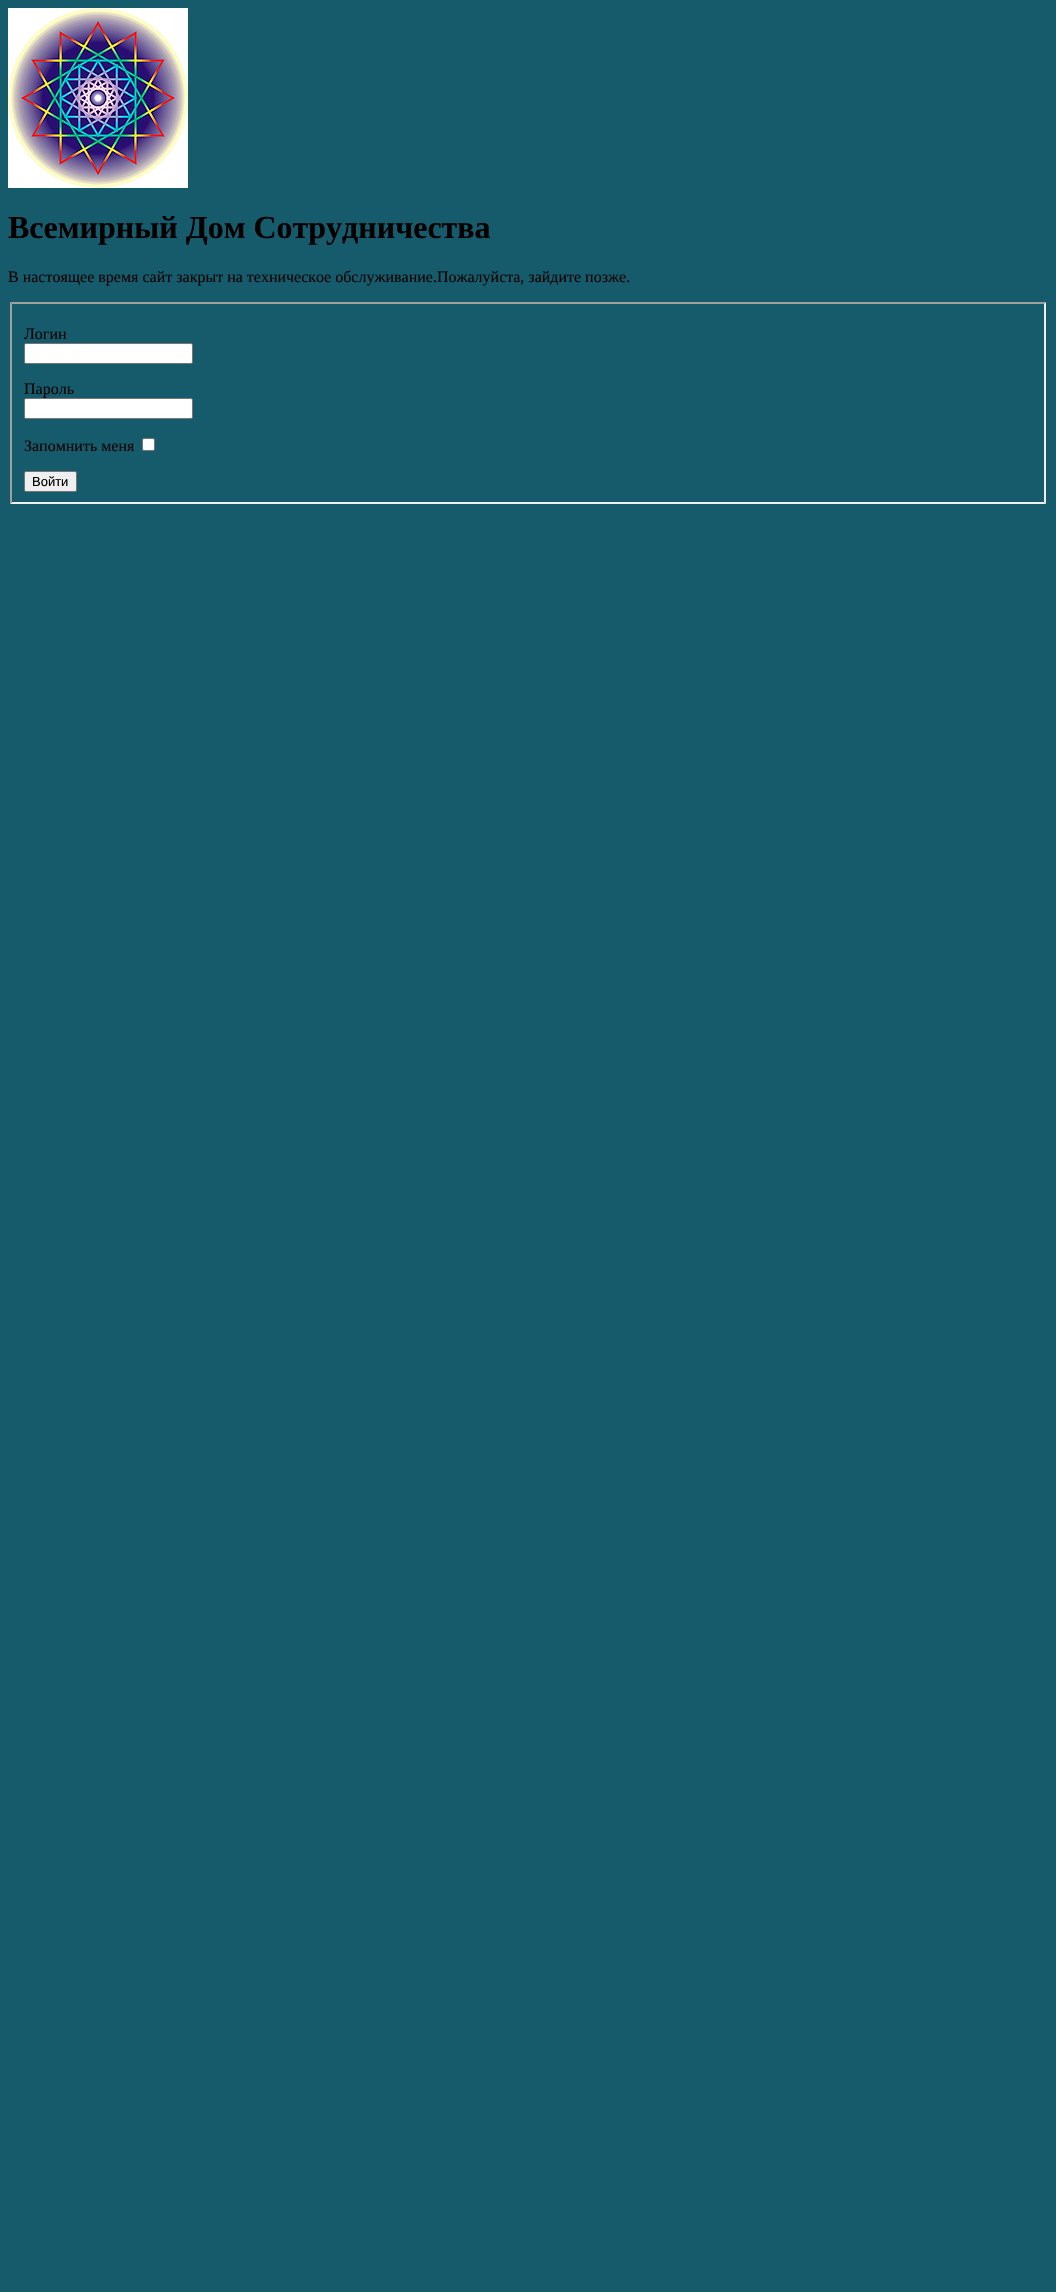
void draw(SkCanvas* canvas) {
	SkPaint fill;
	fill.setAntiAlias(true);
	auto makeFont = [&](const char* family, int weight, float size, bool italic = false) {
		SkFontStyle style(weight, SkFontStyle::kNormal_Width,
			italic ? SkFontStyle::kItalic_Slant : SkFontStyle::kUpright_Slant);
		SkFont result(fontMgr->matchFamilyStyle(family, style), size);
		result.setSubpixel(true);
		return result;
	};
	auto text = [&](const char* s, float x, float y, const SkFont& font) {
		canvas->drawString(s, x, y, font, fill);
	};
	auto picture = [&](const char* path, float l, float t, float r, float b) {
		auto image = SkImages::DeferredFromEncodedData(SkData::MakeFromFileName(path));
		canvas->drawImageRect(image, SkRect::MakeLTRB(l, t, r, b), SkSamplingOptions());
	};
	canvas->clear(0xFF155B6C);
	picture("image0.png", 8, 8, 188, 188);
	fill.setColor(0xFF9F9F9F);
	canvas->drawPath(SkPathBuilder().moveTo(10, 302).lineTo(1046, 302).lineTo(1044, 304).lineTo(12, 304).close().detach(), fill);
	fill.setColor(0xFFEFEFEF);
	canvas->drawPath(SkPathBuilder().moveTo(1046, 302).lineTo(1046, 504).lineTo(1044, 502).lineTo(1044, 304).close().detach(), fill);
	canvas->drawPath(SkPathBuilder().moveTo(1046, 504).lineTo(10, 504).lineTo(12, 502).lineTo(1044, 502).close().detach(), fill);
	fill.setColor(0xFF9F9F9F);
	canvas->drawPath(SkPathBuilder().moveTo(10, 504).lineTo(10, 302).lineTo(12, 304).lineTo(12, 502).close().detach(), fill);
	fill.setColor(0xFFFFFFFF);
	canvas->drawRoundRect(SkRect::MakeLTRB(24.5f, 343.5f, 192.5f, 363.5f), 1.5f, 1.5f, fill);
	fill.setStyle(SkPaint::kStroke_Style);
	fill.setStrokeWidth(1);
	fill.setColor(0xFF767676);
	canvas->drawRoundRect(SkRect::MakeLTRB(24.5f, 343.5f, 192.5f, 363.5f), 1.5f, 1.5f, fill);
	fill.setStyle(SkPaint::kFill_Style);
	fill.setColor(0xFFFFFFFF);
	canvas->drawRoundRect(SkRect::MakeLTRB(24.5f, 398.5f, 192.5f, 418.5f), 1.5f, 1.5f, fill);
	fill.setStyle(SkPaint::kStroke_Style);
	fill.setColor(0xFF767676);
	canvas->drawRoundRect(SkRect::MakeLTRB(24.5f, 398.5f, 192.5f, 418.5f), 1.5f, 1.5f, fill);
	fill.setStyle(SkPaint::kFill_Style);
	fill.setColor(0xFFFFFFFF);
	canvas->drawRoundRect(SkRect::MakeLTRB(142.5f, 438.5f, 154.5f, 450.5f), 1.5f, 1.5f, fill);
	fill.setStyle(SkPaint::kStroke_Style);
	fill.setColor(0xFF767676);
	canvas->drawRoundRect(SkRect::MakeLTRB(142.5f, 438.5f, 154.5f, 450.5f), 1.5f, 1.5f, fill);
	fill.setStyle(SkPaint::kFill_Style);
	fill.setColor(0xFFEFEFEF);
	canvas->drawRoundRect(SkRect::MakeLTRB(24.5f, 471.5f, 76.5f, 491.5f), 1.5f, 1.5f, fill);
	fill.setStyle(SkPaint::kStroke_Style);
	fill.setColor(0xFF767676);
	canvas->drawRoundRect(SkRect::MakeLTRB(24.5f, 471.5f, 76.5f, 491.5f), 1.5f, 1.5f, fill);
	auto font1 = makeFont("Liberation Serif", 700, 32);
	fill.setStyle(SkPaint::kFill_Style);
	fill.setColor(0xFF000000);
	text("Всемирный Дом Сотрудничества", 8, 238, font1);
	auto font2 = makeFont("Liberation Serif", 400, 16);
	text("В настоящее время сайт закрыт на техническое обслуживание.Пожалуйста, зайдите позже.", 8, 282, font2);
	text("Логин", 24, 339, font2);
	text("Пароль", 24, 394, font2);
	text("Запомнить меня", 24, 451, font2);
	auto font3 = makeFont("Liberation Sans", 400, 13);
	text("Войти", 32, 486, font3);
}
